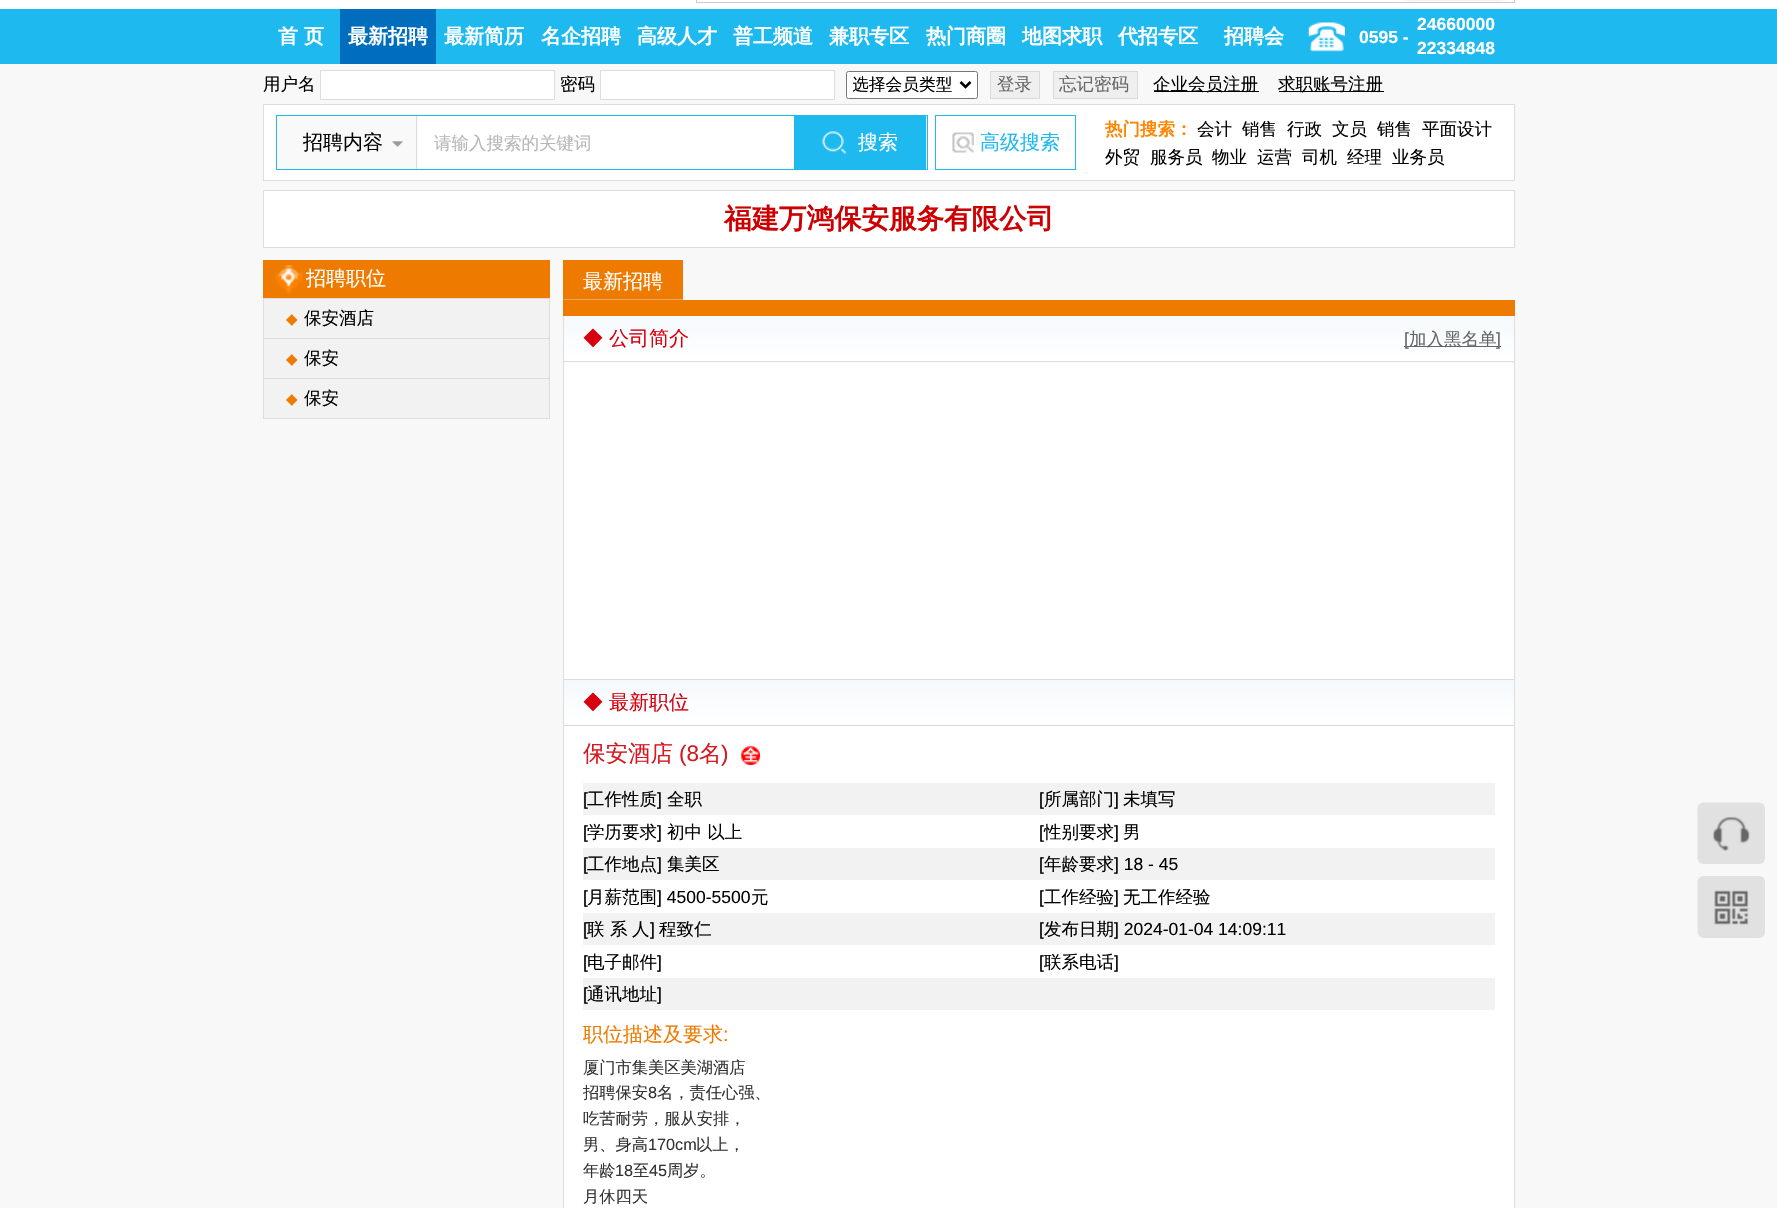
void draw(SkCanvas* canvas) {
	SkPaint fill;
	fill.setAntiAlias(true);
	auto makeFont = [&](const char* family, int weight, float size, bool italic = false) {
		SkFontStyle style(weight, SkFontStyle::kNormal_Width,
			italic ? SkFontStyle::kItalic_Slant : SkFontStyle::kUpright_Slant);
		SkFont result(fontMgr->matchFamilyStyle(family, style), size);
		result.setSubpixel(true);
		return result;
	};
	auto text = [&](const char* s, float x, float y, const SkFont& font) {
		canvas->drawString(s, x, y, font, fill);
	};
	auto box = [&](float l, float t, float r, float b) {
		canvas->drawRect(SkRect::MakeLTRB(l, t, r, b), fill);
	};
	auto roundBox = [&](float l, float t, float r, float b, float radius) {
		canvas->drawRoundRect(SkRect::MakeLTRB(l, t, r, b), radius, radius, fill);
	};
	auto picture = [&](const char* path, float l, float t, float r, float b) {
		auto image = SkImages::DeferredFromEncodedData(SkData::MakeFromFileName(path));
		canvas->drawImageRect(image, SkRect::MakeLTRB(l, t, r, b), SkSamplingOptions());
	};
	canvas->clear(0xFFF8F8F8);
	fill.setColor(0xFFFFFFFF);
	box(0, 0, 1777, 9);
	fill.setStyle(SkPaint::kStroke_Style);
	fill.setStrokeWidth(1);
	fill.setColor(0xFFCCCCCC);
	canvas->drawRect(SkRect::MakeLTRB(696.5f, -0.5f, 1514.5f, 2.5f), fill);
	fill.setStyle(SkPaint::kFill_Style);
	fill.setColor(0x1A000000);
	fill.setMaskFilter(SkMaskFilter::MakeBlur(kNormal_SkBlurStyle, 2));
	canvas->drawRoundRect(SkRect::MakeLTRB(1401, -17, 1508, 0), 11, 11, fill);
	fill.setMaskFilter(nullptr);
	fill.setColor(0xFF1EB9EF);
	box(0, 9, 1777, 64);
	fill.setColor(0xFF006EBD);
	box(340, 9, 436, 64);
	picture("image0.png", 1308, 22, 1345, 52);
	fill.setColor(0xFFFFFFFF);
	canvas->drawRect(SkRect::MakeLTRB(320.5f, 70.5f, 554.5f, 99.5f), fill);
	fill.setStyle(SkPaint::kStroke_Style);
	fill.setColor(0xFFDDDDDD);
	canvas->drawRect(SkRect::MakeLTRB(320.5f, 70.5f, 554.5f, 99.5f), fill);
	fill.setStyle(SkPaint::kFill_Style);
	fill.setColor(0xFFFFFFFF);
	canvas->drawRect(SkRect::MakeLTRB(600.5f, 70.5f, 834.5f, 99.5f), fill);
	fill.setStyle(SkPaint::kStroke_Style);
	fill.setColor(0xFFDDDDDD);
	canvas->drawRect(SkRect::MakeLTRB(600.5f, 70.5f, 834.5f, 99.5f), fill);
	fill.setStyle(SkPaint::kFill_Style);
	fill.setColor(0xFFFFFFFF);
	canvas->drawRoundRect(SkRect::MakeLTRB(846.5f, 71.5f, 977.5f, 98.5f), 2, 2, fill);
	fill.setStyle(SkPaint::kStroke_Style);
	fill.setColor(0xFF767676);
	canvas->drawRoundRect(SkRect::MakeLTRB(846.5f, 71.5f, 977.5f, 98.5f), 2, 2, fill);
	fill.setStrokeWidth(2.5f);
	fill.setColor(0xFF000000);
	canvas->drawPath(SkPathBuilder().moveTo(960.5f, 82).lineTo(965.5f, 87).lineTo(970.5f, 82).detach(), fill);
	fill.setStyle(SkPaint::kFill_Style);
	fill.setColor(0xFFEFEFEF);
	canvas->drawRect(SkRect::MakeLTRB(990.5f, 71.5f, 1039.5f, 98.5f), fill);
	fill.setStyle(SkPaint::kStroke_Style);
	fill.setStrokeWidth(1);
	fill.setColor(0xFFDADADA);
	canvas->drawRect(SkRect::MakeLTRB(990.5f, 71.5f, 1039.5f, 98.5f), fill);
	fill.setStyle(SkPaint::kFill_Style);
	fill.setColor(0xFFEFEFEF);
	canvas->drawRect(SkRect::MakeLTRB(1053.5f, 71.5f, 1137.5f, 98.5f), fill);
	fill.setStyle(SkPaint::kStroke_Style);
	fill.setColor(0xFFDADADA);
	canvas->drawRect(SkRect::MakeLTRB(1053.5f, 71.5f, 1137.5f, 98.5f), fill);
	fill.setStyle(SkPaint::kFill_Style);
	fill.setColor(0xFF000000);
	box(1154, 91, 1259, 92);
	box(1279, 91, 1384, 92);
	fill.setColor(0xFFFFFFFF);
	canvas->drawRect(SkRect::MakeLTRB(263.5f, 104.5f, 1514.5f, 180.5f), fill);
	fill.setStyle(SkPaint::kStroke_Style);
	fill.setColor(0xFFDDDDDD);
	canvas->drawRect(SkRect::MakeLTRB(263.5f, 104.5f, 1514.5f, 180.5f), fill);
	fill.setColor(0xFF1EB9EF);
	canvas->drawRect(SkRect::MakeLTRB(276.5f, 115.5f, 927.5f, 169.5f), fill);
	fill.setStyle(SkPaint::kFill_Style);
	fill.setColor(0xFFF9F9F9);
	box(278, 116, 418, 169);
	picture("image1.png", 392, 141, 403, 147);
	fill.setColor(0xFFDDDDDD);
	box(416, 116, 417, 169);
	fill.setColor(0xFF1EB9EF);
	box(794, 116, 926, 169);
	picture("image2.png", 822, 131, 847, 154);
	picture("image3.png", 952, 132, 974, 153);
	fill.setStyle(SkPaint::kStroke_Style);
	canvas->drawRect(SkRect::MakeLTRB(935.5f, 115.5f, 1075.5f, 169.5f), fill);
	fill.setStyle(SkPaint::kFill_Style);
	fill.setColor(0xFFFFFFFF);
	canvas->drawRect(SkRect::MakeLTRB(263.5f, 190.5f, 1514.5f, 247.5f), fill);
	fill.setStyle(SkPaint::kStroke_Style);
	fill.setColor(0xFFDDDDDD);
	canvas->drawRect(SkRect::MakeLTRB(263.5f, 190.5f, 1514.5f, 247.5f), fill);
	fill.setStyle(SkPaint::kFill_Style);
	fill.setColor(0xFFEF7A00);
	box(263, 260, 550, 298);
	picture("image4.png", 275, 265, 303, 294);
	fill.setColor(0xFFDDDDDD);
	box(263, 418, 550, 419);
	fill.setColor(0xFFF2F2F2);
	box(264, 299, 549, 338);
	fill.setColor(0xFFDDDDDD);
	box(263, 298, 550, 299);
	box(549, 298, 550, 338);
	box(263, 298, 264, 338);
	fill.setColor(0xFFF2F2F2);
	box(264, 339, 549, 378);
	fill.setColor(0xFFDDDDDD);
	box(263, 338, 550, 339);
	box(549, 338, 550, 378);
	box(263, 338, 264, 378);
	fill.setColor(0xFFF2F2F2);
	box(264, 379, 549, 418);
	fill.setColor(0xFFDDDDDD);
	box(263, 378, 550, 379);
	box(549, 378, 550, 418);
	box(263, 378, 264, 418);
	fill.setColor(0xFFEF7A00);
	box(564, 260, 683, 299);
	fill.setColor(0xFFE9A762);
	box(563, 299, 683, 300);
	fill.setColor(0xFFEF7A00);
	box(563, 260, 564, 300);
	box(563, 300, 1515, 316);
	fill.setColor(0xFFDDDDDD);
	box(1514, 316, 1515, 1208);
	box(563, 679, 1515, 680);
	box(563, 316, 564, 1208);
	{
		const SkColor colors[] = {0xFFF5F9FC, 0xFFFFFFFF};
		const float stops[] = {0, 1};
		const SkPoint ends[] = {{1039, 316}, {1039, 361}};
		fill.setShader(SkGradientShader::MakeLinear(ends, colors, stops, 2, SkTileMode::kClamp));
		fill.setAlpha(255);
	}
	box(564, 316, 1514, 361);
	{
		const SkColor colors[] = {0xFFF5F9FC, 0xFFFFFFFF};
		const float stops[] = {0, 1};
		const SkPoint ends[] = {{1039, 361}, {1039, 406}};
		fill.setShader(SkGradientShader::MakeLinear(ends, colors, stops, 2, SkTileMode::kClamp));
		fill.setAlpha(255);
	}
	box(564, 362, 1514, 363);
	fill.setShader(nullptr);
	fill.setColor(0xFFDDDDDD);
	box(564, 361, 1514, 362);
	fill.setColor(0xFF666666);
	box(1404, 346, 1501, 347);
	fill.setColor(0xFFFFFFFF);
	box(564, 363, 1514, 679);
	{
		const SkColor colors[] = {0xFFF5F9FC, 0xFFFFFFFF};
		const float stops[] = {0, 1};
		const SkPoint ends[] = {{1039, 680}, {1039, 725}};
		fill.setShader(SkGradientShader::MakeLinear(ends, colors, stops, 2, SkTileMode::kClamp));
		fill.setAlpha(255);
	}
	box(564, 680, 1514, 725);
	fill.setShader(nullptr);
	fill.setColor(0xFFDDDDDD);
	box(564, 725, 1514, 726);
	fill.setColor(0xFFFFFFFF);
	box(564, 726, 1514, 1208);
	picture("image5.png", 741, 746, 760, 765);
	fill.setColor(0xFFF2F2F2);
	box(583, 783, 1495, 815);
	box(583, 848, 1495, 880);
	box(583, 913, 1495, 945);
	box(583, 978, 1495, 1010);
	fill.setColor(0xFFE2E1E1);
	roundBox(1698, 803, 1765, 864, 6);
	picture("image6.png", 1697, 802, 1765, 864);
	roundBox(1698, 876, 1765, 938, 6);
	picture("image7.png", 1697, 876, 1765, 937);
	auto font1 = makeFont("Liberation Sans", 700, 17.5f);
	fill.setColor(0xFFFFFFFF);
	text("0595 -", 1359, 43, font1);
	text("24660000", 1417, 30, font1);
	text("22334848", 1417, 54, font1);
	auto font2 = makeFont("WenQuanYi Zen Hei", 700, 20);
	text("首", 278, 43, font2);
	text("页", 304, 43, font2);
	text("最新招聘", 348, 43, font2);
	text("最新简历", 444, 43, font2);
	text("名企招聘", 541, 43, font2);
	text("高级人才", 637, 43, font2);
	text("普工频道", 733, 43, font2);
	text("兼职专区", 829, 43, font2);
	text("热门商圈", 926, 43, font2);
	text("地图求职", 1022, 43, font2);
	text("代招专区", 1118, 43, font2);
	text("招聘会", 1224, 43, font2);
	auto font3 = makeFont("WenQuanYi Zen Hei", 500, 17.5f);
	fill.setColor(0xFF000000);
	text("用户名", 263, 90, font3);
	text("密码", 560, 90, font3);
	canvas->save();
	canvas->clipRect(SkRect::MakeLTRB(853, 74, 956, 95));
	auto font4 = makeFont("WenQuanYi Zen Hei", 500, 16.75f);
	text("选择会员类型", 852, 90, font4);
	canvas->restore();
	fill.setColor(0xFF666666);
	text("登录", 997, 90, font3);
	text("忘记密码", 1059, 90, font3);
	fill.setColor(0xFF000000);
	text("企业会员注册", 1153, 90, font3);
	text("求职账号注册", 1278, 90, font3);
	auto font5 = makeFont("WenQuanYi Zen Hei", 500, 20);
	text("招聘内容", 303, 149, font5);
	fill.setColor(0xFFB7B7B7);
	text("请输入搜索的关键词", 434, 149, font3);
	fill.setColor(0xFFFFFFFF);
	text("搜索", 858, 149, font5);
	fill.setColor(0xFF1EB9EF);
	text("高级搜索", 980, 149, font5);
	auto font6 = makeFont("WenQuanYi Zen Hei", 700, 17.5f);
	fill.setColor(0xFFFF8400);
	text("热门搜索：", 1105, 135, font6);
	fill.setColor(0xFF000000);
	text("会计", 1197, 135, font3);
	text("销售", 1242, 135, font3);
	text("行政", 1287, 135, font3);
	text("文员", 1332, 135, font3);
	text("销售", 1377, 135, font3);
	text("平面设计", 1422, 135, font3);
	text("外贸", 1105, 163, font3);
	text("服务员", 1150, 163, font3);
	text("物业", 1212, 163, font3);
	text("运营", 1257, 163, font3);
	text("司机", 1302, 163, font3);
	text("经理", 1347, 163, font3);
	text("业务员", 1392, 163, font3);
	auto font7 = makeFont("WenQuanYi Zen Hei", 700, 27.5f);
	fill.setColor(0xFFCC0000);
	text("福建万鸿保安服务有限公司", 724, 228, font7);
	fill.setColor(0xFFFFFFFF);
	text("招聘职位", 306, 285, font5);
	auto font8 = makeFont("DejaVu Sans", 400, 15);
	fill.setColor(0xFFEF7A00);
	text("◆", 286, 324, font8);
	fill.setColor(0xFF000000);
	text("保安酒店", 304, 324, font3);
	fill.setColor(0xFFEF7A00);
	text("◆", 286, 364, font8);
	fill.setColor(0xFF000000);
	text("保安", 304, 364, font3);
	fill.setColor(0xFFEF7A00);
	text("◆", 286, 404, font8);
	fill.setColor(0xFF000000);
	text("保安", 304, 404, font3);
	fill.setColor(0xFFFFFFFF);
	text("最新招聘", 583, 288, font5);
	fill.setColor(0xFFD7000F);
	text("◆ 公司简介", 583, 345, font5);
	auto font9 = makeFont("Liberation Sans", 400, 17.5f);
	fill.setColor(0xFF666666);
	text("[", 1404, 345, font9);
	text("加入黑名单", 1409, 345, font3);
	text("]", 1496, 345, font9);
	fill.setColor(0xFFD7000F);
	text("◆ 最新职位", 583, 709, font5);
	auto font10 = makeFont("WenQuanYi Zen Hei", 500, 22.5f);
	fill.setColor(0xFFD71820);
	text("保安酒店", 583, 761, font10);
	auto font11 = makeFont("Liberation Sans", 400, 22.5f);
	text("(8", 679, 761, font11);
	text("名", 699, 761, font10);
	text(")", 721, 761, font11);
	fill.setColor(0xFF000000);
	text("[", 583, 805, font9);
	text("工作性质", 587, 805, font3);
	text("]", 657, 805, font9);
	text("全职", 667, 805, font3);
	text("[", 1039, 805, font9);
	text("所属部门", 1044, 805, font3);
	text("]", 1114, 805, font9);
	text("未填写", 1123, 805, font3);
	text("[", 583, 838, font9);
	text("学历要求", 587, 838, font3);
	text("]", 657, 838, font9);
	text("初中 以上", 667, 838, font3);
	text("[", 1039, 838, font9);
	text("性别要求", 1044, 838, font3);
	text("]", 1114, 838, font9);
	text("男", 1123, 838, font3);
	text("[", 583, 870, font9);
	text("工作地点", 587, 870, font3);
	text("]", 657, 870, font9);
	text("集美区", 667, 870, font3);
	text("[", 1039, 870, font9);
	text("年龄要求", 1044, 870, font3);
	text("] 18 - 45", 1114, 870, font9);
	text("[", 583, 903, font9);
	text("月薪范围", 587, 903, font3);
	text("] 4500-5500", 657, 903, font9);
	text("元", 751, 903, font3);
	text("[", 1039, 903, font9);
	text("工作经验", 1044, 903, font3);
	text("]", 1114, 903, font9);
	text("无工作经验", 1123, 903, font3);
	text("[", 583, 935, font9);
	text("联", 587, 935, font3);
	text("系", 610, 935, font3);
	text("人", 632, 935, font3);
	text("]", 650, 935, font9);
	text("程致仁", 659, 935, font3);
	text("[", 1039, 935, font9);
	text("发布日期", 1044, 935, font3);
	text("] 2024-01-04 14:09:11", 1114, 935, font9);
	text("[", 583, 968, font9);
	text("电子邮件", 587, 968, font3);
	text("]", 657, 968, font9);
	text("[", 1039, 968, font9);
	text("联系电话", 1044, 968, font3);
	text("]", 1114, 968, font9);
	text("[", 583, 1000, font9);
	text("通讯地址", 587, 1000, font3);
	text("]", 657, 1000, font9);
	fill.setColor(0xFFEF7A00);
	text("职位描述及要求", 583, 1041, font5);
	auto font12 = makeFont("Liberation Sans", 400, 20);
	text(":", 723, 1041, font12);
	auto font13 = makeFont("WenQuanYi Zen Hei", 500, 16.25f);
	fill.setColor(0xFF333333);
	text("厦门市集美区美湖酒店", 583, 1073, font13);
	text("招聘保安", 583, 1098, font13);
	auto font14 = makeFont("Liberation Sans", 400, 16.25f);
	text("8", 648, 1098, font14);
	text("名，责任心强、", 657, 1098, font13);
	text("吃苦耐劳，服从安排，", 583, 1124, font13);
	text("男、身高", 583, 1150, font13);
	text("170cm", 648, 1150, font14);
	text("以上，", 696, 1150, font13);
	text("年龄", 583, 1176, font13);
	text("18", 615, 1176, font14);
	text("至", 633, 1176, font13);
	text("45", 649, 1176, font14);
	text("周岁。", 667, 1176, font13);
	text("月休四天", 583, 1202, font13);
}
